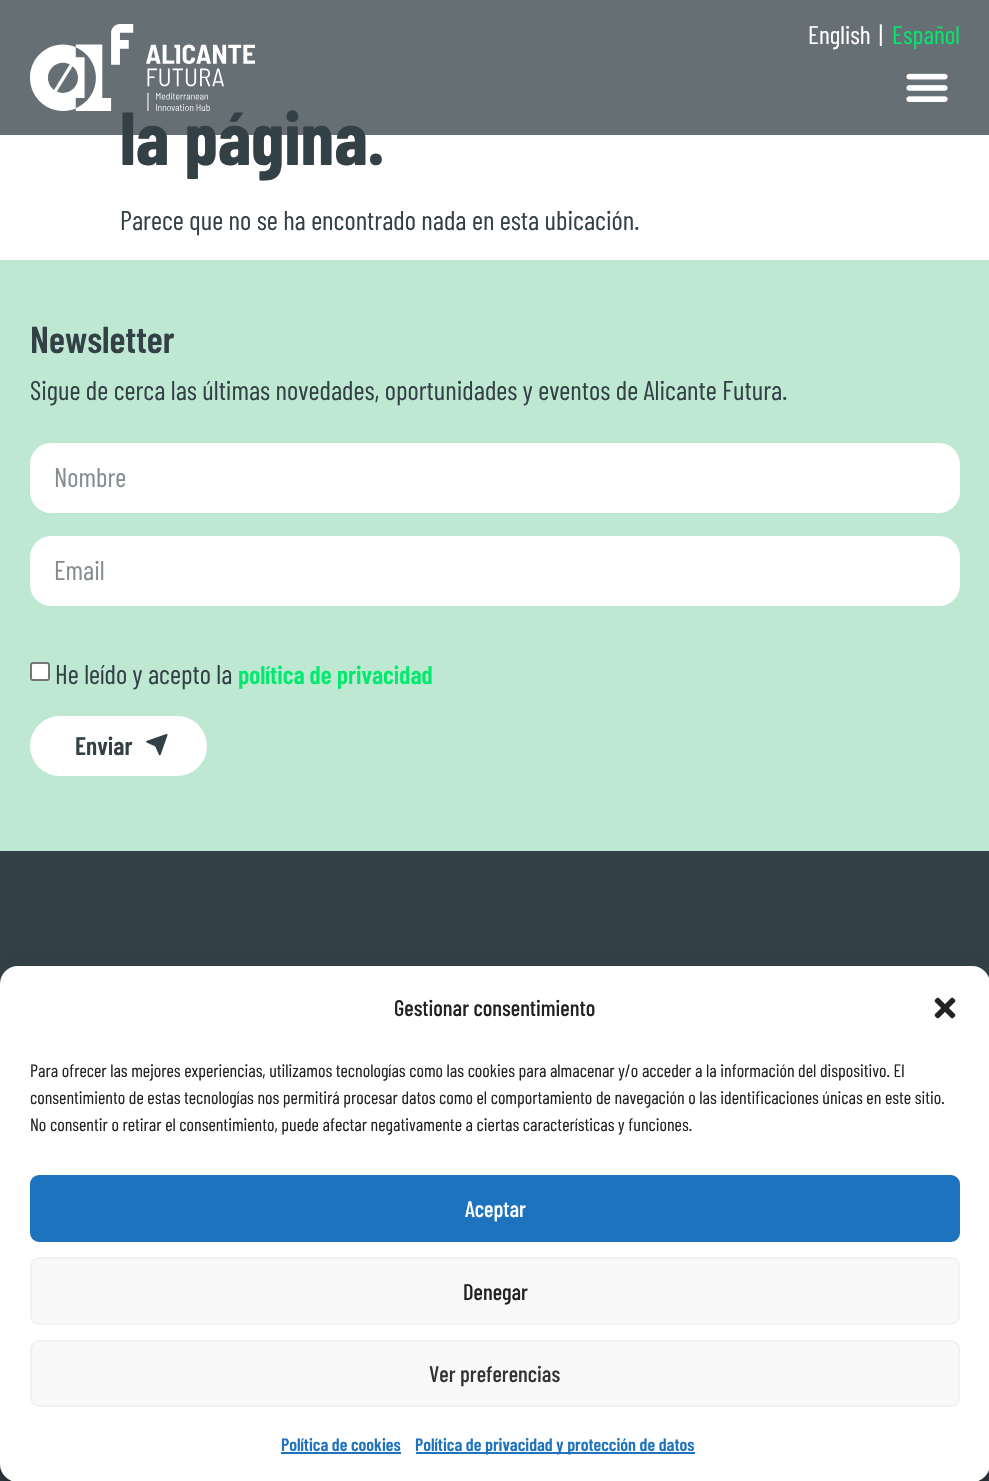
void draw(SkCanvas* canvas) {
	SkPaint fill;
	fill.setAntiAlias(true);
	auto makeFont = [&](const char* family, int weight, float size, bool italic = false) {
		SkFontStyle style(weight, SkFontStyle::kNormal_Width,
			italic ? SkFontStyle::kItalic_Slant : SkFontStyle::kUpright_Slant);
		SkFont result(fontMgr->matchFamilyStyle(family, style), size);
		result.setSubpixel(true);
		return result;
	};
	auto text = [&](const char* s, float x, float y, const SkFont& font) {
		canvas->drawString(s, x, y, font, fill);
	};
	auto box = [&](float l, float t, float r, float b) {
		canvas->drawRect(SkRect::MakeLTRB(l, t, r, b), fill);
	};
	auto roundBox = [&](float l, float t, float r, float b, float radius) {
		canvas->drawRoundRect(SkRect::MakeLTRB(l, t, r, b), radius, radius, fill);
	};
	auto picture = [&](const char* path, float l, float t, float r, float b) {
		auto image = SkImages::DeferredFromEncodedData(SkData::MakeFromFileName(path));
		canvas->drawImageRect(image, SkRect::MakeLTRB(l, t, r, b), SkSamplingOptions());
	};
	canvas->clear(0xFFFFFFFF);
	fill.setColor(0xFFBEE8D2);
	box(0, 260, 989, 851);
	fill.setColor(0xFFFFFFFF);
	roundBox(30, 443, 960, 513, 21);
	roundBox(30, 536, 960, 606, 21);
	canvas->drawRoundRect(SkRect::MakeLTRB(31, 663, 49, 680), 2, 2, fill);
	fill.setStyle(SkPaint::kStroke_Style);
	fill.setStrokeWidth(2);
	fill.setColor(0xFF767676);
	canvas->drawRoundRect(SkRect::MakeLTRB(31, 663, 49, 680), 2, 2, fill);
	fill.setStyle(SkPaint::kFill_Style);
	fill.setColor(0xFFFFFFFF);
	roundBox(30, 716, 207, 776, 30);
	picture("image2.png", 146, 734, 168, 756);
	fill.setColor(0xFF334045);
	box(0, 851, 989, 1481);
	fill.setColor(0x3B000000);
	fill.setMaskFilter(SkMaskFilter::MakeBlur(kNormal_SkBlurStyle, 4.5f));
	canvas->drawRoundRect(SkRect::MakeLTRB(0, 975, 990, 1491), 18, 18, fill);
	fill.setMaskFilter(nullptr);
	fill.setColor(0x30000000);
	fill.setMaskFilter(SkMaskFilter::MakeBlur(kNormal_SkBlurStyle, 15));
	canvas->drawRoundRect(SkRect::MakeLTRB(0, 981, 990, 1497), 18, 18, fill);
	fill.setMaskFilter(nullptr);
	fill.setColor(0xFFFFFFFF);
	roundBox(0, 966, 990, 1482, 18);
	picture("image3.png", 934, 997, 956, 1019);
	fill.setColor(0xFF1E73BE);
	canvas->drawRoundRect(SkRect::MakeLTRB(31, 1176, 959, 1241), 8, 8, fill);
	fill.setStyle(SkPaint::kStroke_Style);
	canvas->drawRoundRect(SkRect::MakeLTRB(31, 1176, 959, 1241), 8, 8, fill);
	fill.setStyle(SkPaint::kFill_Style);
	fill.setColor(0xFFF9F9F9);
	canvas->drawRoundRect(SkRect::MakeLTRB(31, 1258, 959, 1324), 8, 8, fill);
	fill.setStyle(SkPaint::kStroke_Style);
	fill.setColor(0xFFF2F2F2);
	canvas->drawRoundRect(SkRect::MakeLTRB(31, 1258, 959, 1324), 8, 8, fill);
	fill.setStyle(SkPaint::kFill_Style);
	fill.setColor(0xFFF9F9F9);
	canvas->drawRoundRect(SkRect::MakeLTRB(31, 1341, 959, 1406), 8, 8, fill);
	fill.setStyle(SkPaint::kStroke_Style);
	fill.setColor(0xFFF2F2F2);
	canvas->drawRoundRect(SkRect::MakeLTRB(31, 1341, 959, 1406), 8, 8, fill);
	fill.setStyle(SkPaint::kFill_Style);
	fill.setColor(0xFF1E73BE);
	box(281, 1452, 401, 1454);
	box(416, 1452, 695, 1454);
	auto font1 = makeFont("Barlow Condensed", 700, 75);
	fill.setColor(0xFF334045);
	text("la página.", 120, 165, font1);
	fill.setColor(0xBF334045);
	box(0, 0, 989, 135);
	picture("image1.png", 906, 73, 948, 102);
	auto font2 = makeFont("Barlow Condensed", 400, 25.5f);
	fill.setColor(0xFF00EA6D);
	text("Español", 892, 44, font2);
	fill.setColor(0xFFFFFFFF);
	text("|", 879, 44, font2);
	text("English", 808, 44, font2);
	picture("image0.png", 30, 24, 255, 111);
	auto font3 = makeFont("Barlow Condensed", 400, 27);
	fill.setColor(0xFF334045);
	text("Parece que no se ha encontrado nada en esta ubicación.", 120, 230, font3);
	auto font4 = makeFont("Barlow Condensed", 600, 37.5f);
	text("Newsletter", 30, 353, font4);
	text("Sigue de cerca las últimas novedades, oportunidades y eventos de Alicante Futura.", 30, 400, font3);
	fill.setColor(0xFF858C8F);
	text("Nombre", 54, 487, font3);
	text("Email", 54, 580, font3);
	fill.setColor(0xFF334045);
	text("He leído y acepto la", 55, 684, font3);
	auto font5 = makeFont("Barlow Condensed", 600, 25.5f);
	fill.setColor(0xFF00EA6D);
	text("política de privacidad", 238, 684, font5);
	fill.setColor(0xFF334045);
	text("Enviar", 75, 755, font5);
	auto font6 = makeFont("Barlow Condensed", 500, 22.5f);
	fill.setColor(0xFF222222);
	text("Gestionar consentimiento", 394, 1016, font6);
	auto font7 = makeFont("Barlow Condensed", 400, 18);
	text("Para ofrecer las mejores experiencias, utilizamos tecnologías como las cookies para almacenar y/o acceder a la información del dispositivo. El", 30, 1077, font7);
	text("consentimiento de estas tecnologías nos permitirá procesar datos como el comportamiento de navegación o las identificaciones únicas en este sitio.", 30, 1104, font7);
	text("No consentir o retirar el consentimiento, puede afectar negativamente a ciertas características y funciones.", 30, 1131, font7);
	fill.setColor(0xFFFFFFFF);
	text("Aceptar", 465, 1217, font6);
	fill.setColor(0xFF222222);
	text("Denegar", 463, 1300, font6);
	fill.setColor(0xFF333333);
	text("Ver preferencias", 429, 1382, font6);
	auto font8 = makeFont("Barlow Condensed", 600, 18);
	fill.setColor(0xFF1E73BE);
	text("Política de cookies", 281, 1451, font8);
	text("Política de privacidad y protección de datos", 415, 1451, font8);
}
